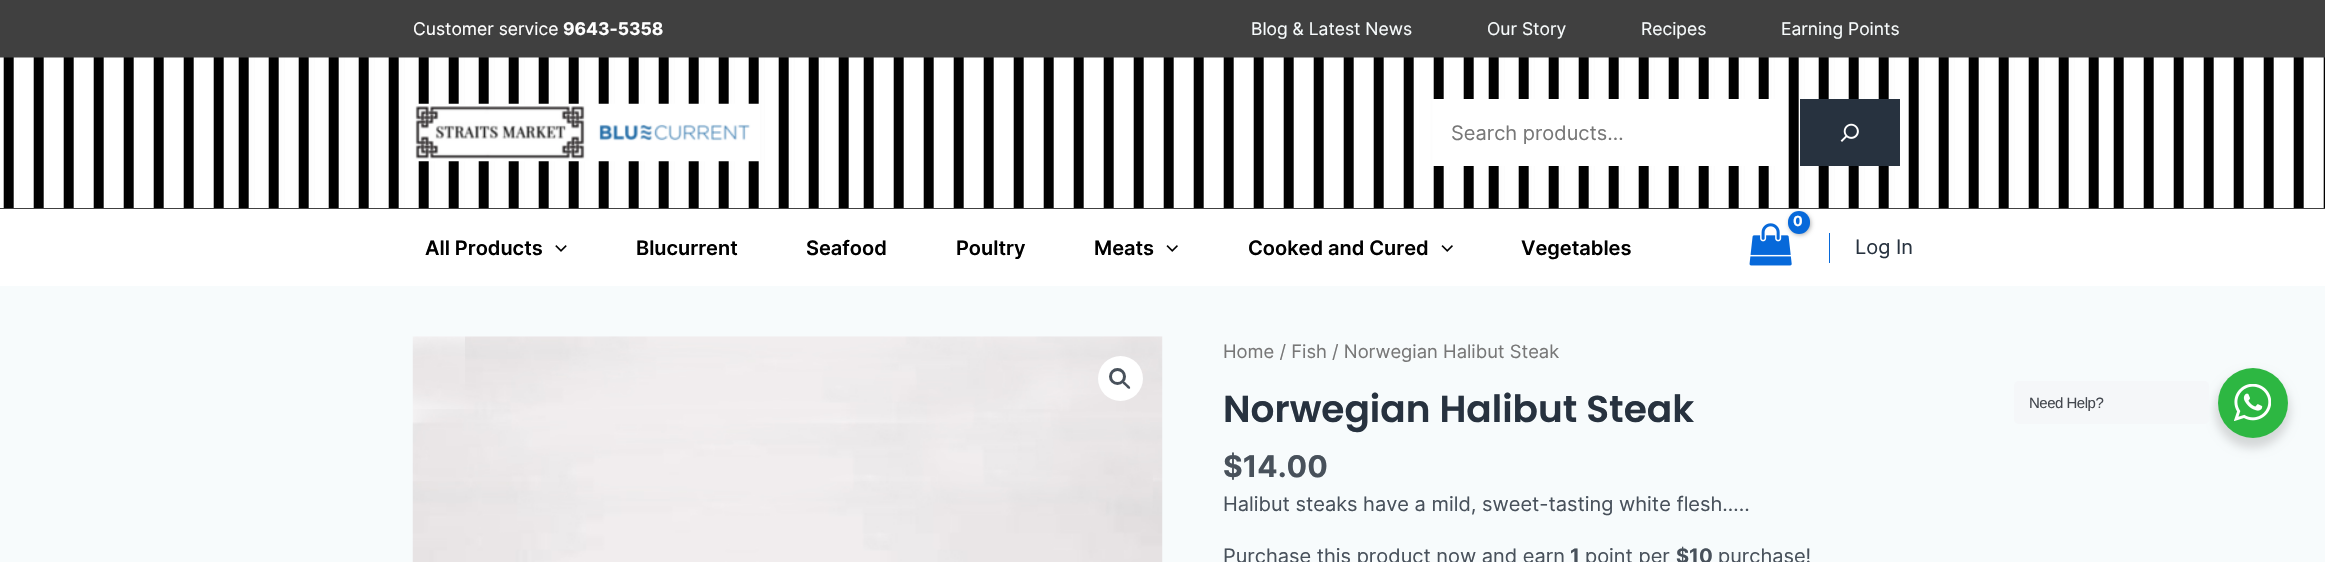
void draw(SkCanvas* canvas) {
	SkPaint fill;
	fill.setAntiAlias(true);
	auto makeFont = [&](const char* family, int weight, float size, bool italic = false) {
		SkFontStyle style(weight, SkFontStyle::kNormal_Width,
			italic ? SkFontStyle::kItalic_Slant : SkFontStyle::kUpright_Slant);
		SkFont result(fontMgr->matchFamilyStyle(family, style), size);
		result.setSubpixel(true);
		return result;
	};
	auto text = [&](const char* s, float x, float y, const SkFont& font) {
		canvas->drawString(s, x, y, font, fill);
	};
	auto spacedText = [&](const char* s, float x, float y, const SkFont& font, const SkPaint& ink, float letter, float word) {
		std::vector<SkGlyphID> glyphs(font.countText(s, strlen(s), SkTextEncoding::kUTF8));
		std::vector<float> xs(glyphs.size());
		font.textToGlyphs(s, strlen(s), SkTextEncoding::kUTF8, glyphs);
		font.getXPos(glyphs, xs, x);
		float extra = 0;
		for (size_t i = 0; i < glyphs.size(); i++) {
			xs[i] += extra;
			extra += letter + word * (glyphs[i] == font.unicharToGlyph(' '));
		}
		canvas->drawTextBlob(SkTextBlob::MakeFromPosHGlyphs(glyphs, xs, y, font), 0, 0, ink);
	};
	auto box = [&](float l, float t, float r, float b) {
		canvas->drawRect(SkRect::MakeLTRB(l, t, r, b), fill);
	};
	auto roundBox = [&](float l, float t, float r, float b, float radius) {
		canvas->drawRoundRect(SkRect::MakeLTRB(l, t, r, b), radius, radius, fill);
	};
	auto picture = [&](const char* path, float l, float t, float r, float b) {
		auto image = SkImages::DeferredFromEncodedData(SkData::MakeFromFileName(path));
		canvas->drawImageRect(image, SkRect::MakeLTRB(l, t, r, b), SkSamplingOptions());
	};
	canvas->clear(0xFFF7FBFC);
	fill.setColor(0xFF404040);
	box(0, 0, 2325, 58);
	fill.setColor(0xFFFFFFFF);
	box(0, 209, 2325, 286);
	picture("image5.png", 1749, 223, 1792, 266);
	fill.setColor(0x4D000000);
	fill.setMaskFilter(SkMaskFilter::MakeBlur(kNormal_SkBlurStyle, 2));
	canvas->drawRoundRect(SkRect::MakeLTRB(1789, 213, 1811, 235), 11, 11, fill);
	fill.setMaskFilter(nullptr);
	picture("image0.png", 0, 57, 2325, 208);
	fill.setColor(0xFF404040);
	box(0, 208, 2325, 209);
	picture("image1.png", 415, 103, 759, 162);
	fill.setColor(0xFFFFFFFF);
	box(1433, 99, 1775, 166);
	fill.setColor(0xFF27323F);
	box(1800, 99, 1900, 166);
	picture("image2.png", 1840, 123, 1859, 142);
	picture("image3.png", 555, 245, 567, 252);
	picture("image4.png", 1166, 245, 1178, 252);
	picture("image4.png", 1441, 245, 1453, 252);
	fill.setColor(0xFF0769DA);
	roundBox(1788, 211, 1810, 234, 11);
	box(1829, 233, 1830, 263);
	picture("image6.png", 412, 336, 1163, 562);
	fill.setColor(0xFFFFFFFF);
	canvas->drawCircle(1120.5f, 378.5f, 22.5f, fill);
	fill.setStyle(SkPaint::kStroke_Style);
	fill.setStrokeWidth(3);
	fill.setColor(0xFF48515B);
	canvas->drawCircle(1117.5f, 376.5f, 7, fill);
	fill.setStyle(SkPaint::kFill_Style);
	canvas->drawPath(SkPathBuilder().moveTo(1122.5f, 381.5f).cubicTo(1124, 380, 1126.5f, 383.5f, 1127, 384).cubicTo(1128, 385, 1131, 387, 1130, 388.5f).cubicTo(1128.5f, 390, 1126, 386.5f, 1125.5f, 386).cubicTo(1124.5f, 385, 1121.5f, 383, 1122.5f, 381.5f).close().detach(), fill);
	fill.setColor(0x24000000);
	fill.setMaskFilter(SkMaskFilter::MakeBlur(kNormal_SkBlurStyle, 5));
	canvas->drawRoundRect(SkRect::MakeLTRB(2215, 373, 2290, 448), 37.5f, 37.5f, fill);
	fill.setMaskFilter(nullptr);
	fill.setColor(0xFFF5F7F9);
	roundBox(2014, 381, 2209, 424, 5);
	fill.setColor(0xFF2DB742);
	canvas->drawCircle(2253, 403, 35, fill);
	picture("image7.png", 2234, 384, 2271, 421);
	auto font1 = makeFont("Inter", 400, 17.5f);
	fill.setColor(0xFFFFFFFF);
	text("Customer service", 413, 35, font1);
	auto font2 = makeFont("Inter", 700, 17.5f);
	text("9643-5358", 563, 35, font2);
	fill.setColor(0xFFF7FBFC);
	text("Blog & Latest News", 1251, 35, font1);
	text("Our Story", 1487, 35, font1);
	text("Recipes", 1641, 35, font1);
	text("Earning Points", 1781, 35, font1);
	auto font3 = makeFont("Inter", 400, 20);
	fill.setColor(0xFF777777);
	text("Search products…", 1451, 140, font3);
	auto font4 = makeFont("Inter", 600, 20);
	fill.setColor(0xFF000000);
	text("All Products", 425, 255, font4);
	text("Blucurrent", 636, 255, font4);
	text("Seafood", 806, 255, font4);
	text("Poultry", 956, 255, font4);
	text("Meats", 1094, 255, font4);
	text("Cooked and Cured", 1248, 255, font4);
	text("Vegetables", 1521, 255, font4);
	auto font5 = makeFont("Inter", 700, 14);
	fill.setColor(0xFFFFFFFF);
	spacedText("0", 1793, 226, font5, fill, -1, 0);
	fill.setColor(0xFF27323F);
	text("Log In", 1855, 254, font3);
	auto font6 = makeFont("Inter", 400, 18.4f);
	fill.setColor(0xFF777777);
	text("Home / Fish / Norwegian Halibut Steak", 1223, 358, font6);
	auto font7 = makeFont("Poppins", 600, 37.5f);
	fill.setColor(0xFF27323F);
	text("Norwegian Halibut Steak", 1223, 422, font7);
	auto font8 = makeFont("Inter", 700, 30);
	fill.setColor(0xFF48515B);
	text("$14.00", 1223, 477, font8);
	text("Halibut steaks have a mild, sweet-tasting white flesh…..", 1223, 511, font3);
	text("Purchase this product now and earn", 1223, 563, font3);
	auto font9 = makeFont("Inter", 700, 20);
	text("1", 1570, 563, font9);
	text("point per", 1585, 563, font3);
	text("$10", 1676, 563, font9);
	text("purchase!", 1718, 563, font3);
	auto font10 = makeFont("Liberation Sans", 400, 15);
	fill.setColor(0xFF43474E);
	spacedText("Need Help?", 2029, 408, font10, fill, -0.5f, 0);
}
